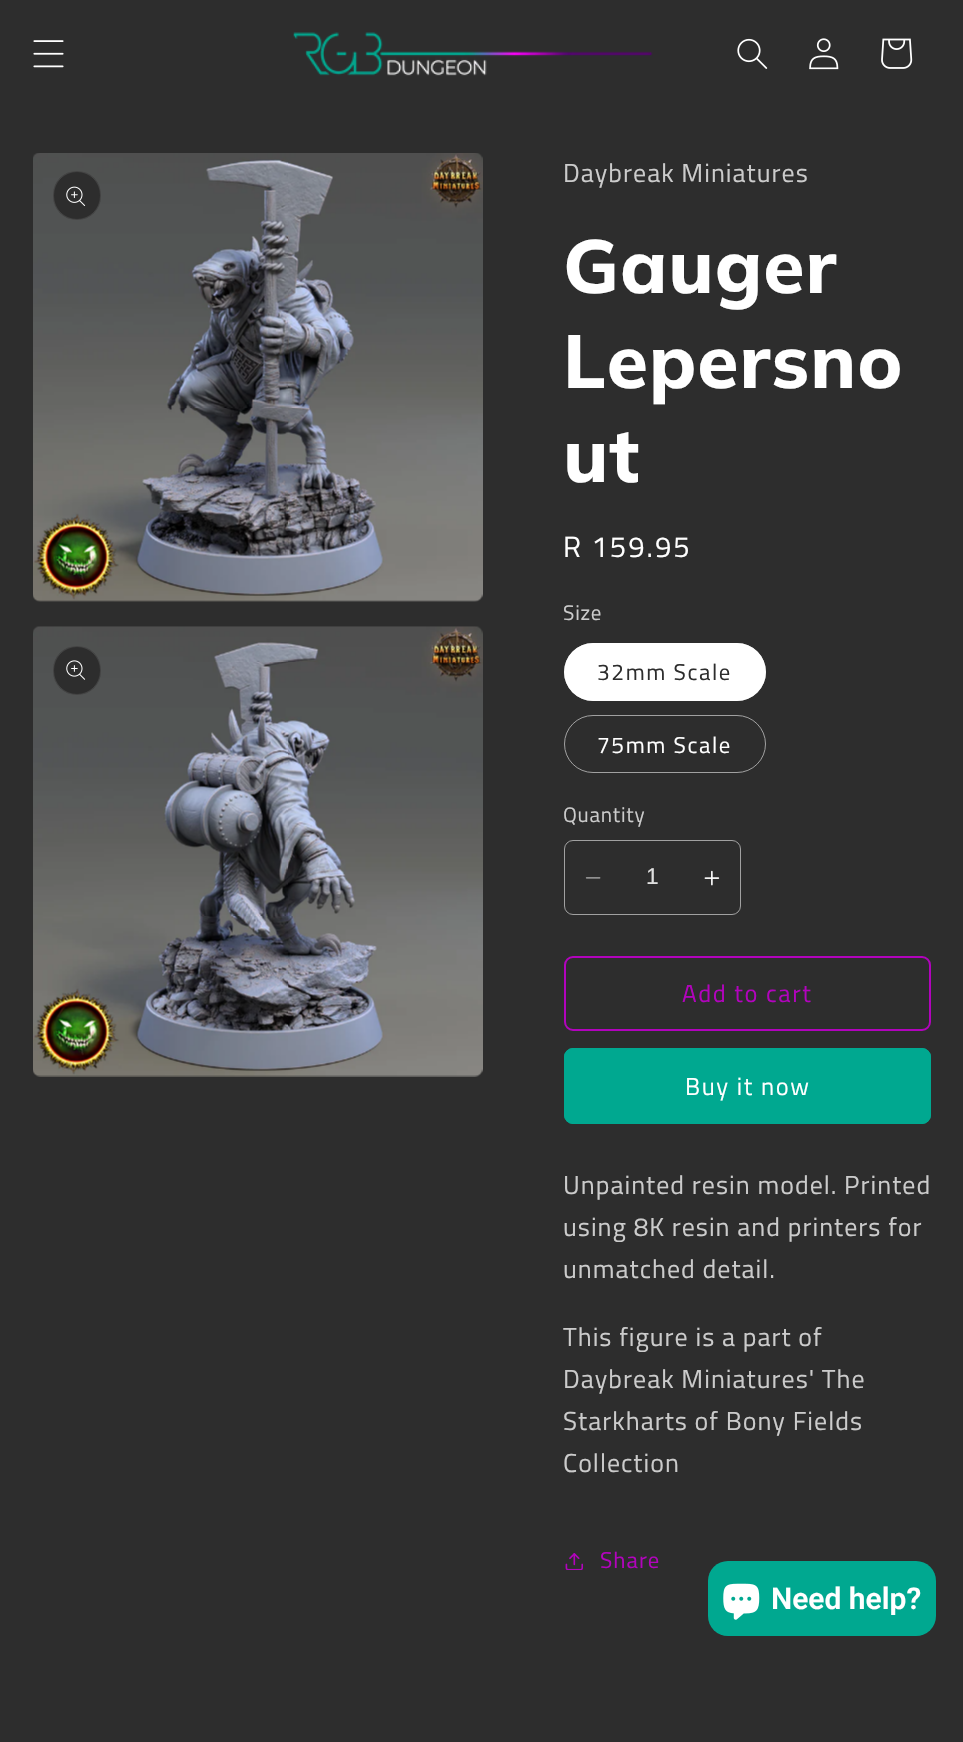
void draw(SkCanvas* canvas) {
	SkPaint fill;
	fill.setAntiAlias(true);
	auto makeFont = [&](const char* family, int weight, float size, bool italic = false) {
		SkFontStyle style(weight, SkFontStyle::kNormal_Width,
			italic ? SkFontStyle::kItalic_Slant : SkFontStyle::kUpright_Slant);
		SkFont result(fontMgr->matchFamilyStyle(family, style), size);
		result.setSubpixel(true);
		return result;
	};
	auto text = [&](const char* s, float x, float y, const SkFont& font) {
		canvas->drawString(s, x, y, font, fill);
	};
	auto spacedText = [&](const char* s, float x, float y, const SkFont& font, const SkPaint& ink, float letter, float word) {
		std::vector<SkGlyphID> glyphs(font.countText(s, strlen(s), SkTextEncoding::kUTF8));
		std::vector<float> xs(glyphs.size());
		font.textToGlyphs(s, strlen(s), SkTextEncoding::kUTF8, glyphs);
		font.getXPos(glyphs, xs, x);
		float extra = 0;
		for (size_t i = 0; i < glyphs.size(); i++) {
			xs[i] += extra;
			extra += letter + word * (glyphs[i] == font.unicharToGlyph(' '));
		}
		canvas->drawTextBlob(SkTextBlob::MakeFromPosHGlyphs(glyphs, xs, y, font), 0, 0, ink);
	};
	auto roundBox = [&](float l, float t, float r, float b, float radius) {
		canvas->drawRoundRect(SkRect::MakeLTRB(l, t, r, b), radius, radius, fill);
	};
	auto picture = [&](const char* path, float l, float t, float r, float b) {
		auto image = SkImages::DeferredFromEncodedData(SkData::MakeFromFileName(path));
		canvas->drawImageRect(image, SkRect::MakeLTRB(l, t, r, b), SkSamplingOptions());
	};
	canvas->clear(0xFF2D2D2D);
	picture("image0.png", 33, 40, 64, 68);
	picture("image1.png", 293, 32, 653, 76);
	picture("image2.png", 737, 38, 768, 69);
	picture("image3.png", 809, 38, 839, 70);
	picture("image4.png", 881, 38, 913, 69);
	picture("image5.png", 33, 153, 483, 602);
	fill.setColor(0xFF2D2D2D);
	roundBox(53, 171, 101, 220, 24);
	fill.setStyle(SkPaint::kStroke_Style);
	fill.setStrokeWidth(1);
	fill.setColor(0x1AFFFFFF);
	canvas->drawRoundRect(SkRect::MakeLTRB(53.5f, 171.5f, 100.5f, 219.5f), 23.5f, 23.5f, fill);
	picture("image6.png", 66, 186, 86, 206);
	picture("image7.png", 33, 626, 483, 1077);
	fill.setStyle(SkPaint::kFill_Style);
	fill.setColor(0xFF2D2D2D);
	roundBox(53, 646, 101, 695, 24);
	fill.setStyle(SkPaint::kStroke_Style);
	fill.setColor(0x1AFFFFFF);
	canvas->drawRoundRect(SkRect::MakeLTRB(53.5f, 646.5f, 100.5f, 694.5f), 23.5f, 23.5f, fill);
	picture("image8.png", 66, 660, 86, 680);
	fill.setStyle(SkPaint::kFill_Style);
	fill.setColor(0xFFFFFFFF);
	roundBox(564, 643, 766, 701, 29);
	fill.setStyle(SkPaint::kStroke_Style);
	fill.setColor(0x8CFFFFFF);
	canvas->drawRoundRect(SkRect::MakeLTRB(564.5f, 643.5f, 765.5f, 700.5f), 28.5f, 28.5f, fill);
	fill.setColor(0xFFA1A1A1);
	canvas->drawRoundRect(SkRect::MakeLTRB(564.5f, 715.5f, 765.5f, 772.5f), 28.5f, 28.5f, fill);
	picture("image9.png", 585, 877, 601, 879);
	picture("image10.png", 704, 870, 720, 886);
	canvas->drawRoundRect(SkRect::MakeLTRB(564.5f, 840.5f, 740.5f, 914.5f), 8.5f, 8.5f, fill);
	fill.setStrokeWidth(2);
	fill.setColor(0xFFB203BD);
	canvas->drawRoundRect(SkRect::MakeLTRB(565, 957, 930, 1030), 8, 8, fill);
	fill.setStyle(SkPaint::kFill_Style);
	fill.setColor(0xFF00A890);
	roundBox(564, 1048, 931, 1124, 9);
	fill.setStyle(SkPaint::kStroke_Style);
	fill.setStrokeWidth(1);
	canvas->drawRoundRect(SkRect::MakeLTRB(564.5f, 1048.5f, 930.5f, 1123.5f), 8.5f, 8.5f, fill);
	picture("image11.png", 565, 1553, 583, 1570);
	fill.setStyle(SkPaint::kFill_Style);
	roundBox(708, 1561, 936, 1636, 20);
	picture("image12.png", 723, 1583, 760, 1620);
	auto font1 = makeFont("Titillium Web", 400, 26);
	fill.setColor(0xFFCBCBCB);
	spacedText("Daybreak Miniatures", 563, 182, font1, fill, 1, 0);
	auto font2 = makeFont("Muli", 800, 75);
	fill.setColor(0xFFFFFFFF);
	spacedText("Gauger", 563, 293, font2, fill, 1, 0);
	spacedText("Lepersno", 563, 388, font2, fill, 1, 0);
	spacedText("ut", 563, 482, font2, fill, 1, 0);
	auto font3 = makeFont("Titillium Web", 400, 29.25f);
	spacedText("R 159.95", 563, 557, font3, fill, 2, 0);
	auto font4 = makeFont("Titillium Web", 400, 21);
	fill.setColor(0xFFCBCBCB);
	spacedText("Size", 563, 620, font4, fill, 0.75f, 0);
	auto font5 = makeFont("Titillium Web", 400, 22.75f);
	fill.setColor(0xFF2D2D2D);
	spacedText("32mm Scale", 597, 680, font5, fill, 1.6f, 0);
	fill.setColor(0xFFFFFFFF);
	spacedText("75mm Scale", 597, 753, font5, fill, 1.6f, 0);
	fill.setColor(0xFFCBCBCB);
	spacedText("Quantity", 563, 822, font4, fill, 0.75f, 0);
	auto font6 = makeFont("Liberation Sans", 400, 22.75f);
	fill.setColor(0xFFE0E0E0);
	text("1", 646, 884, font6);
	auto font7 = makeFont("Titillium Web", 400, 24.5f);
	fill.setColor(0xFFB203BD);
	spacedText("Add to cart", 682, 1002, font7, fill, 1.6f, 0);
	fill.setColor(0xFFFFFFFF);
	spacedText("Buy it now", 685, 1095, font7, fill, 1.6f, 0);
	fill.setColor(0xFFCBCBCB);
	spacedText("Unpainted resin model. Printed", 563, 1194, font1, fill, 1, 0);
	spacedText("using 8K resin and printers for", 563, 1236, font1, fill, 1, 0);
	spacedText("unmatched detail.", 563, 1278, font1, fill, 1, 0);
	spacedText("This figure is a part of", 563, 1346, font1, fill, 1, 0);
	spacedText("Daybreak Miniatures' The", 563, 1388, font1, fill, 1, 0);
	spacedText("Starkharts of Bony Fields", 563, 1430, font1, fill, 1, 0);
	spacedText("Collection", 563, 1472, font1, fill, 1, 0);
	fill.setColor(0xFFB203BD);
	spacedText("Share", 600, 1568, font5, fill, 1, 0);
	auto font8 = makeFont("Roboto", 600, 30);
	fill.setColor(0xFFFFFFFF);
	text("Need help?", 771, 1609, font8);
}
